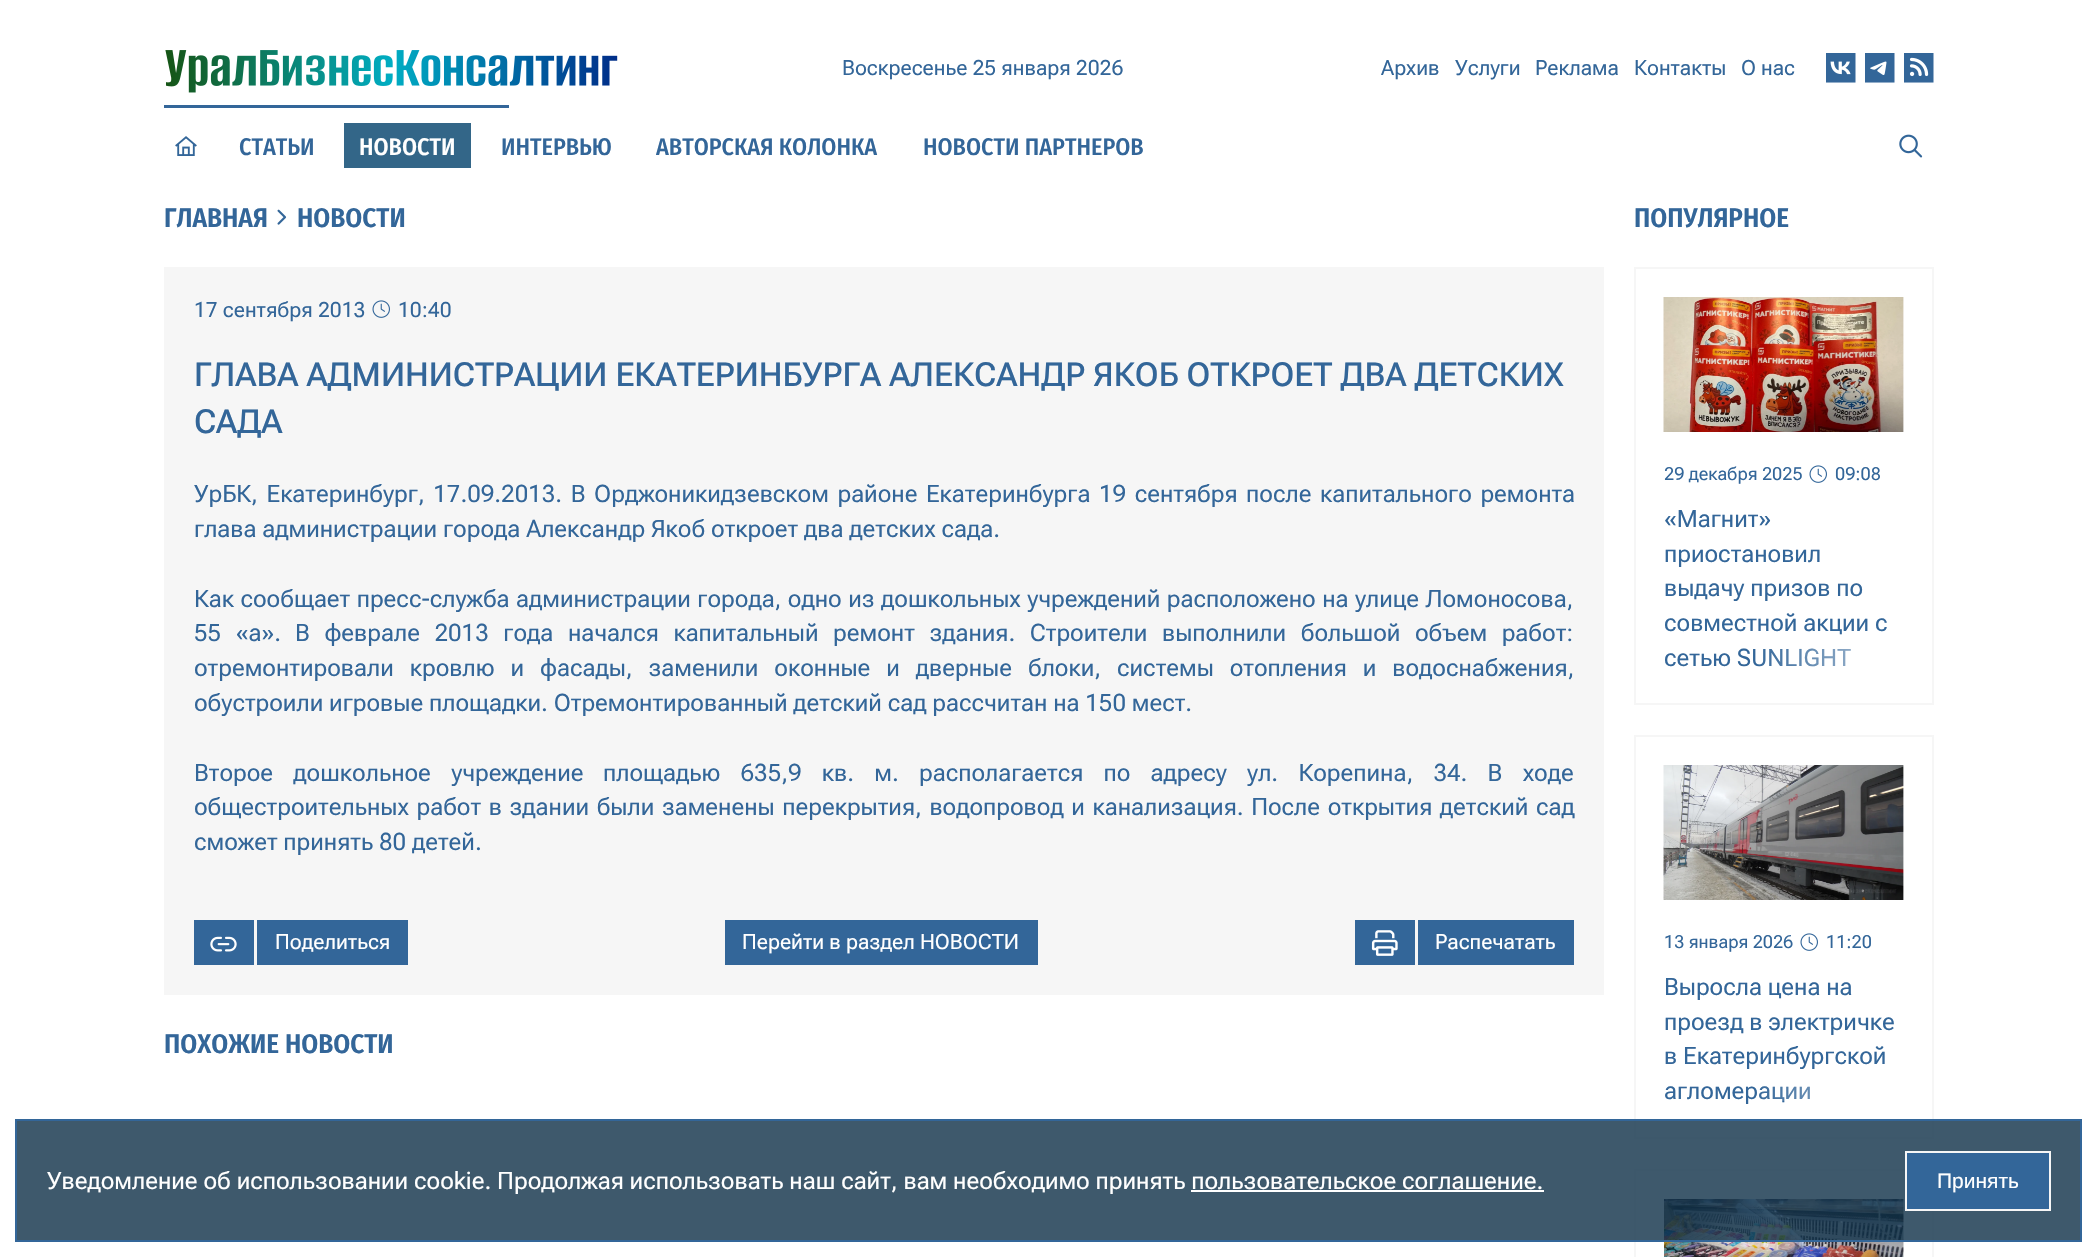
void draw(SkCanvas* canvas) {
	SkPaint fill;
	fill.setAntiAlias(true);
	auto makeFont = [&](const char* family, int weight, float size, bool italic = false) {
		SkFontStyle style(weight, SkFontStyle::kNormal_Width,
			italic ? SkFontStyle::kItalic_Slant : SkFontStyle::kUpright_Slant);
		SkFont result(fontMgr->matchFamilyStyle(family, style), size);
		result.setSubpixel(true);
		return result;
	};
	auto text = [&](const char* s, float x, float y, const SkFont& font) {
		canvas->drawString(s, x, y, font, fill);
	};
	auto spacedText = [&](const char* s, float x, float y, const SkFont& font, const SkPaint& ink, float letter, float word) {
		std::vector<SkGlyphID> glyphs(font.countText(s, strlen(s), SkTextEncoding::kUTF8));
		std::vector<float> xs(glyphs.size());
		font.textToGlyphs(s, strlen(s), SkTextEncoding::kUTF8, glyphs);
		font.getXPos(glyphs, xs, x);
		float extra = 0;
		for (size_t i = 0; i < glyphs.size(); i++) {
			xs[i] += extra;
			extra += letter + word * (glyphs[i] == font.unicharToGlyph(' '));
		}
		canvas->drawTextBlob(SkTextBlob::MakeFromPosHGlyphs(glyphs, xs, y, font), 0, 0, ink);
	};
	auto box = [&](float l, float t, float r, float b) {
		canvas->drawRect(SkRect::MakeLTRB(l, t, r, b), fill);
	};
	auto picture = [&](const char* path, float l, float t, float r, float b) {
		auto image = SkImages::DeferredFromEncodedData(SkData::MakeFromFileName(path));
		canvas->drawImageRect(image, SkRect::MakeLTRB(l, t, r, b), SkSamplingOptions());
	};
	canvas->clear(0xFFFFFFFF);
	picture("image0.png", 165, 50, 618, 93);
	picture("image1.png", 1826, 53, 1856, 83);
	picture("image2.png", 1865, 53, 1895, 83);
	picture("image3.png", 1904, 53, 1934, 83);
	fill.setColor(0xFF336699);
	box(164, 105, 509, 108);
	picture("image4.png", 175, 136, 197, 156);
	fill.setColor(0xFF336688);
	box(344, 123, 471, 168);
	picture("image5.png", 1899, 134, 1923, 158);
	picture("image6.png", 277, 209, 287, 225);
	fill.setColor(0xFFF6F6F6);
	box(164, 267, 1604, 995);
	picture("image7.png", 372, 300, 390, 318);
	fill.setColor(0xFF336699);
	box(194, 920, 254, 965);
	picture("image8.png", 210, 936, 237, 952);
	box(257, 920, 408, 965);
	box(725, 920, 1038, 965);
	box(1355, 920, 1415, 965);
	picture("image9.png", 1371, 930, 1398, 956);
	box(1418, 920, 1574, 965);
	picture("image10.png", 1663, 297, 1904, 432);
	picture("image11.png", 1809, 465, 1827, 483);
	picture("image12.png", 1663, 765, 1904, 900);
	picture("image11.png", 1800, 933, 1818, 951);
	picture("image13.png", 1664, 1199, 1904, 1257);
	fill.setStyle(SkPaint::kStroke_Style);
	fill.setStrokeWidth(2);
	fill.setColor(0xFFF6F6F6);
	canvas->drawRect(SkRect::MakeLTRB(1635, 1170, 1933, 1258), fill);
	auto font1 = makeFont("Roboto Flex", 400, 21);
	fill.setStyle(SkPaint::kFill_Style);
	fill.setColor(0xFF336699);
	text("Воскресенье 25 января 2026", 842, 75, font1);
	text("Архив", 1381, 75, font1);
	text("Услуги", 1455, 75, font1);
	text("Реклама", 1535, 75, font1);
	text("Контакты", 1634, 75, font1);
	text("О нас", 1741, 75, font1);
	auto font2 = makeFont("Fira Sans Condensed", 500, 24);
	text("СТАТЬИ", 239, 155, font2);
	fill.setColor(0xFFFFFFFF);
	text("НОВОСТИ", 359, 155, font2);
	fill.setColor(0xFF336699);
	text("ИНТЕРВЬЮ", 501, 155, font2);
	text("АВТОРСКАЯ КОЛОНКА", 656, 155, font2);
	text("НОВОСТИ ПАРТНЕРОВ", 923, 155, font2);
	auto font3 = makeFont("Fira Sans Condensed", 600, 27);
	text("ГЛАВНАЯ", 164, 227, font3);
	text("НОВОСТИ", 297, 227, font3);
	text("17 сентября 2013", 194, 317, font1);
	text("10:40", 398, 317, font1);
	auto font4 = makeFont("Roboto Flex", 500, 33);
	text("ГЛАВА АДМИНИСТРАЦИИ ЕКАТЕРИНБУРГА АЛЕКСАНДР ЯКОБ ОТКРОЕТ ДВА ДЕТСКИХ", 194, 386, font4);
	text("САДА", 194, 433, font4);
	auto font5 = makeFont("Roboto Flex", 400, 24);
	spacedText("УрБК, Екатеринбург, 17.09.2013. В Орджоникидзевском районе Екатеринбурга 19 сентября после капитального ремонта", 194, 502, font5, fill, 0, 2.75f);
	text("глава администрации города Александр Якоб откроет два детских сада.", 194, 537, font5);
	spacedText("Как сообщает пресс-служба администрации города, одно из дошкольных учреждений расположено на улице Ломоносова,", 194, 607, font5, fill, 0, 0.6f);
	spacedText("55 «а».", 194, 641, font5, fill, 0, 8.75f);
	spacedText("В феврале 2013 года начался капитальный ремонт здания. Строители выполнили большой объем работ:", 295, 641, font5, fill, 0, 8.75f);
	spacedText("отремонтировали кровлю и фасады, заменили оконные и дверные блоки, системы отопления и водоснабжения,", 194, 676, font5, fill, 0, 10.1f);
	text("обустроили игровые площадки. Отремонтированный детский сад рассчитан на 150 мест.", 194, 711, font5);
	spacedText("Второе дошкольное учреждение", 194, 781, font5, fill, 0, 14.4f);
	spacedText("площадью 635,9 кв. м. располагается по адресу ул. Корепина, 34. В ходе", 603, 781, font5, fill, 0, 14.4f);
	spacedText("общестроительных работ в здании были заменены перекрытия, водопровод и канализация. После открытия детский сад", 194, 815, font5, fill, 0, 1.75f);
	text("сможет принять 80 детей.", 194, 850, font5);
	fill.setColor(0xFFFFFFFF);
	text("Поделиться", 275, 949, font1);
	text("Перейти в раздел НОВОСТИ", 742, 949, font1);
	text("Распечатать", 1435, 949, font1);
	fill.setColor(0xFF336699);
	text("ПОХОЖИЕ НОВОСТИ", 164, 1053, font3);
	text("ПОПУЛЯРНОЕ", 1634, 227, font3);
	auto font6 = makeFont("Roboto Flex", 400, 18);
	text("29 декабря 2025", 1664, 480, font6);
	text("09:08", 1835, 480, font6);
	text("«Магнит»", 1664, 527, font5);
	text("приостановил", 1664, 562, font5);
	text("выдачу призов по", 1664, 596, font5);
	text("совместной акции с", 1664, 631, font5);
	text("сетью SUNLIGHT", 1664, 666, font5);
	{
		const SkColor colors[] = {0x00FFFFFF, 0x80FFFFFF, 0xFFFFFFFF};
		const float stops[] = {0, 0.75f, 1};
		const SkPoint ends[] = {{1754, 653}, {1904, 653}};
		fill.setShader(SkGradientShader::MakeLinear(ends, colors, stops, 3, SkTileMode::kClamp));
		fill.setAlpha(255);
	}
	box(1759, 648, 1851, 667);
	fill.setStyle(SkPaint::kStroke_Style);
	fill.setShader(nullptr);
	fill.setColor(0xFFF6F6F6);
	canvas->drawRect(SkRect::MakeLTRB(1635, 268, 1933, 704), fill);
	fill.setStyle(SkPaint::kFill_Style);
	fill.setColor(0xFF336699);
	text("13 января 2026", 1664, 948, font6);
	text("11:20", 1826, 948, font6);
	text("Выросла цена на", 1664, 995, font5);
	text("проезд в электричке", 1664, 1030, font5);
	text("в Екатеринбургской", 1664, 1064, font5);
	text("агломерации", 1664, 1099, font5);
	{
		const SkColor colors[] = {0x00FFFFFF, 0x80FFFFFF, 0xFFFFFFFF};
		const float stops[] = {0, 0.75f, 1};
		const SkPoint ends[] = {{1754, 1086}, {1904, 1086}};
		fill.setShader(SkGradientShader::MakeLinear(ends, colors, stops, 3, SkTileMode::kClamp));
		fill.setAlpha(255);
	}
	box(1759, 1086, 1810, 1101);
	fill.setStyle(SkPaint::kStroke_Style);
	fill.setShader(nullptr);
	fill.setColor(0xFFF6F6F6);
	canvas->drawRect(SkRect::MakeLTRB(1635, 736, 1933, 1138), fill);
	fill.setStyle(SkPaint::kFill_Style);
	fill.setColor(0xCC0E3047);
	canvas->drawRect(SkRect::MakeLTRB(16, 1120, 2081, 1241), fill);
	fill.setStyle(SkPaint::kStroke_Style);
	fill.setColor(0xFF336699);
	canvas->drawRect(SkRect::MakeLTRB(16, 1120, 2081, 1241), fill);
	fill.setStyle(SkPaint::kFill_Style);
	fill.setColor(0xFFFFFFFF);
	text("Уведомление об использовании cookie. Продолжая использовать наш сайт, вам необходимо принять пользовательское соглашение.", 47, 1189, font5);
	box(1191, 1190, 1544, 1192);
	fill.setColor(0xFF336699);
	canvas->drawRect(SkRect::MakeLTRB(1906, 1152, 2050, 1210), fill);
	fill.setStyle(SkPaint::kStroke_Style);
	fill.setColor(0xFFF6F6F6);
	canvas->drawRect(SkRect::MakeLTRB(1906, 1152, 2050, 1210), fill);
	auto font7 = makeFont("Liberation Sans", 400, 21);
	fill.setStyle(SkPaint::kFill_Style);
	fill.setColor(0xFFFFFFFF);
	text("Принять", 1937, 1188, font7);
}
